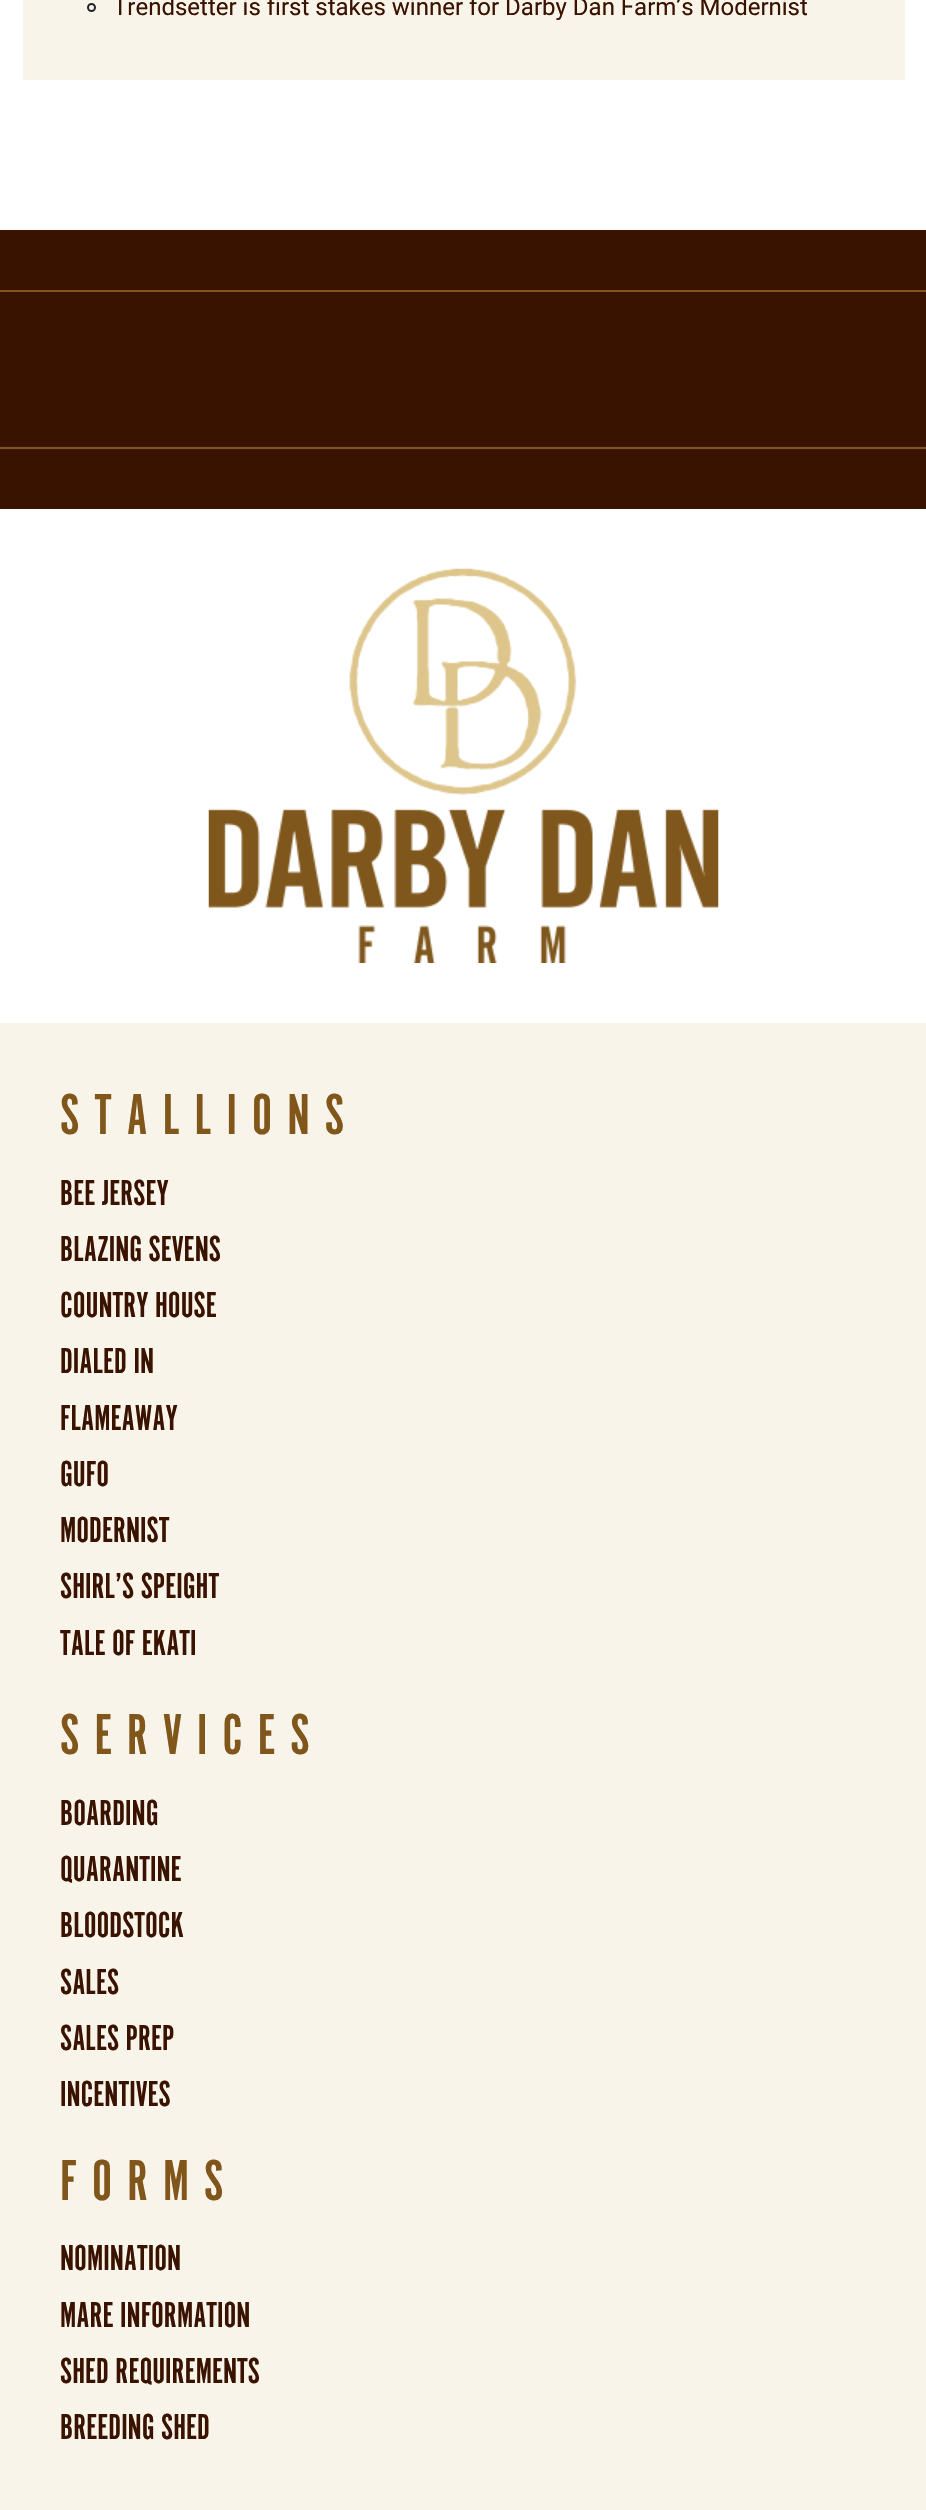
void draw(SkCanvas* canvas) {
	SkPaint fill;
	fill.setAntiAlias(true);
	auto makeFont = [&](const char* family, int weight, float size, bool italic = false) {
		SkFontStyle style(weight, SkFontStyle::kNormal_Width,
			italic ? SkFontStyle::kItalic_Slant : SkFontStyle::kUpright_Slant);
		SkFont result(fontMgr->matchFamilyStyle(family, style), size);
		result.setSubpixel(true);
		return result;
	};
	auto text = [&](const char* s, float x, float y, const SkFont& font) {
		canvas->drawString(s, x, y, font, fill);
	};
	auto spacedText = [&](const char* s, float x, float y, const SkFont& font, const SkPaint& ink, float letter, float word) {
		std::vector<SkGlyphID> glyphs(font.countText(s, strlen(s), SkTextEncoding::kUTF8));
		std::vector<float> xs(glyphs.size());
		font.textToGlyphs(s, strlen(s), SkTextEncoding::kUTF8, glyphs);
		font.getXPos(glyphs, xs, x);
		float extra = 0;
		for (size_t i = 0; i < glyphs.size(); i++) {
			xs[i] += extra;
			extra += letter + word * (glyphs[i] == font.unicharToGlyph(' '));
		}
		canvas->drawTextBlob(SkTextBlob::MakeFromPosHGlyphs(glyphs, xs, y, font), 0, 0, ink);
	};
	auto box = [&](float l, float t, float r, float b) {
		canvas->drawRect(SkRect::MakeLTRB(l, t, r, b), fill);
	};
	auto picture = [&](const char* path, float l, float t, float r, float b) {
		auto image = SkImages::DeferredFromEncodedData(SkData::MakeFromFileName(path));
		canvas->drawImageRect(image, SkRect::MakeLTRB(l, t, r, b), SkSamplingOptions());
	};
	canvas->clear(0xFFFFFFFF);
	fill.setColor(0xFFF9F4E9);
	box(23, 0, 905, 80);
	fill.setStyle(SkPaint::kStroke_Style);
	fill.setStrokeWidth(2);
	fill.setColor(0xFF212529);
	canvas->drawCircle(91.5f, 7.5f, 3.5f, fill);
	fill.setStyle(SkPaint::kFill_Style);
	fill.setColor(0xFF3A1200);
	box(0, 230, 926, 509);
	fill.setColor(0xFF80561B);
	box(0, 290, 926, 292);
	box(0, 447, 926, 449);
	picture("image0.png", 208, 568, 719, 963);
	fill.setColor(0xFFF9F4E9);
	box(0, 1023, 926, 2510);
	auto font1 = makeFont("Roboto", 400, 24);
	fill.setColor(0xFF3A1200);
	text("Trendsetter is first stakes winner for Darby Dan Farm’s Modernist", 113, 15, font1);
	auto font2 = makeFont("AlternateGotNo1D", 400, 60);
	fill.setColor(0xFF80561B);
	spacedText("STALLIONS", 60, 1134, font2, fill, 15, 0);
	auto font3 = makeFont("AlternateGotNo1D", 400, 37.5f);
	fill.setColor(0xFF3A1200);
	text("BEE JERSEY", 60, 1205, font3);
	text("BLAZING SEVENS", 60, 1261, font3);
	text("COUNTRY HOUSE", 60, 1317, font3);
	text("DIALED IN", 60, 1373, font3);
	text("FLAMEAWAY", 60, 1430, font3);
	text("GUFO", 60, 1486, font3);
	text("MODERNIST", 60, 1542, font3);
	text("SHIRL’S SPEIGHT", 60, 1598, font3);
	text("TALE OF EKATI", 60, 1655, font3);
	fill.setColor(0xFF80561B);
	spacedText("SERVICES", 60, 1754, font2, fill, 15, 0);
	fill.setColor(0xFF3A1200);
	text("BOARDING", 60, 1825, font3);
	text("QUARANTINE", 60, 1881, font3);
	text("BLOODSTOCK", 60, 1937, font3);
	text("SALES", 60, 1994, font3);
	text("SALES PREP", 60, 2050, font3);
	text("INCENTIVES", 60, 2106, font3);
	fill.setColor(0xFF80561B);
	spacedText("FORMS", 60, 2200, font2, fill, 15, 0);
	fill.setColor(0xFF3A1200);
	text("NOMINATION", 60, 2270, font3);
	text("MARE INFORMATION", 60, 2327, font3);
	text("SHED REQUIREMENTS", 60, 2383, font3);
	text("BREEDING SHED", 60, 2439, font3);
}
